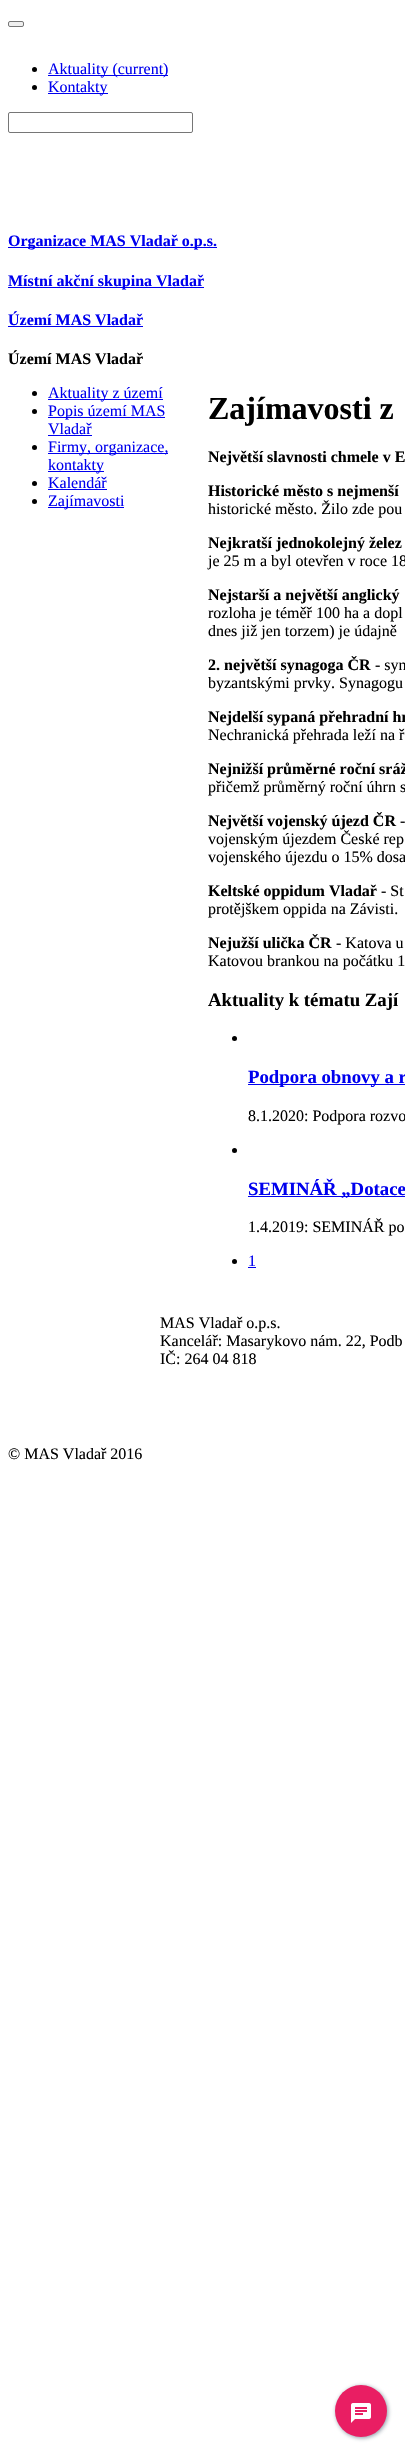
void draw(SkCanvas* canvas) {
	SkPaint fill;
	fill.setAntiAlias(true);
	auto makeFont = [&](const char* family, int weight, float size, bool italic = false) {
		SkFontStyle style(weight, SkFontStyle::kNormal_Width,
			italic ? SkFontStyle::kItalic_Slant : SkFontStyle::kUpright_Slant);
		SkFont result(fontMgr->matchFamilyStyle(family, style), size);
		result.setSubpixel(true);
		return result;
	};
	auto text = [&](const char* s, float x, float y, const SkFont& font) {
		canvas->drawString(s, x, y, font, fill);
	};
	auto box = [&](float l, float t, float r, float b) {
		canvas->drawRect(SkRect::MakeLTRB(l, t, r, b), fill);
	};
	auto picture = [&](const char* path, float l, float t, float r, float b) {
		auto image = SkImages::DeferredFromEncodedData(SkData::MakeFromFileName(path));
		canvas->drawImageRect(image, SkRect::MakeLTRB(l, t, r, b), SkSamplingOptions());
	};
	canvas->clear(0xFFFFFFFF);
	fill.setColor(0xFFEFEFEF);
	canvas->drawRoundRect(SkRect::MakeLTRB(8.5f, 21.5f, 23.5f, 26.5f), 1.5f, 1.5f, fill);
	fill.setStyle(SkPaint::kStroke_Style);
	fill.setStrokeWidth(1);
	fill.setColor(0xFF767676);
	canvas->drawRoundRect(SkRect::MakeLTRB(8.5f, 21.5f, 23.5f, 26.5f), 1.5f, 1.5f, fill);
	fill.setStyle(SkPaint::kFill_Style);
	fill.setColor(0xFF000000);
	canvas->drawCircle(34.5f, 69.5f, 2.5f, fill);
	fill.setColor(0xFF0000EE);
	box(48, 75, 168, 76);
	fill.setColor(0xFF000000);
	canvas->drawCircle(34.5f, 87.5f, 2.5f, fill);
	fill.setColor(0xFF0000EE);
	box(48, 93, 108, 94);
	fill.setStyle(SkPaint::kStroke_Style);
	fill.setColor(0xFF767676);
	canvas->drawRoundRect(SkRect::MakeLTRB(8.5f, 112.5f, 192.5f, 132.5f), 1.5f, 1.5f, fill);
	fill.setStyle(SkPaint::kFill_Style);
	fill.setColor(0xFF0000EE);
	box(8, 247, 217, 248);
	box(8, 287, 204, 288);
	box(8, 326, 143, 327);
	fill.setColor(0xFF000000);
	canvas->drawCircle(34.5f, 393.5f, 2.5f, fill);
	fill.setColor(0xFF0000EE);
	box(48, 399, 163, 400);
	fill.setColor(0xFF000000);
	canvas->drawCircle(34.5f, 411.5f, 2.5f, fill);
	fill.setColor(0xFF0000EE);
	box(48, 417, 165, 418);
	box(48, 435, 92, 436);
	fill.setColor(0xFF000000);
	canvas->drawCircle(34.5f, 447.5f, 2.5f, fill);
	fill.setColor(0xFF0000EE);
	box(48, 453, 168, 454);
	box(48, 471, 104, 472);
	fill.setColor(0xFF000000);
	canvas->drawCircle(34.5f, 483.5f, 2.5f, fill);
	fill.setColor(0xFF0000EE);
	box(48, 489, 107, 490);
	fill.setColor(0xFF000000);
	canvas->drawCircle(34.5f, 501.5f, 2.5f, fill);
	fill.setColor(0xFF0000EE);
	box(48, 507, 124, 508);
	fill.setColor(0xFF000000);
	canvas->drawCircle(234.5f, 1038.5f, 2.5f, fill);
	fill.setColor(0xFF0000EE);
	box(248, 1084, 405, 1085);
	fill.setColor(0xFF000000);
	canvas->drawCircle(234.5f, 1150.5f, 2.5f, fill);
	fill.setColor(0xFF0000EE);
	box(248, 1196, 405, 1197);
	fill.setColor(0xFF000000);
	canvas->drawCircle(234.5f, 1261.5f, 2.5f, fill);
	fill.setColor(0xFF0000EE);
	box(248, 1267, 256, 1268);
	fill.setColor(0xBF657786);
	fill.setMaskFilter(SkMaskFilter::MakeBlur(kNormal_SkBlurStyle, 2));
	canvas->drawRoundRect(SkRect::MakeLTRB(336, 2386, 388, 2438), 26, 26, fill);
	fill.setMaskFilter(nullptr);
	fill.setColor(0xFFE91E63);
	canvas->drawCircle(361, 2411, 26, fill);
	picture("image0.png", 351, 2403, 371, 2423);
	auto font1 = makeFont("Liberation Serif", 400, 16);
	fill.setColor(0xFF0000EE);
	text("Aktuality (current)", 48, 74, font1);
	text("Kontakty", 48, 92, font1);
	auto font2 = makeFont("Liberation Serif", 700, 16);
	text("Organizace MAS Vladař o.p.s.", 8, 246, font2);
	text("Místní akční skupina Vladař", 8, 286, font2);
	text("Území MAS Vladař", 8, 325, font2);
	fill.setColor(0xFF000000);
	text("Území MAS Vladař", 8, 364, font2);
	fill.setColor(0xFF0000EE);
	text("Aktuality z území", 48, 398, font1);
	text("Popis území MAS", 48, 416, font1);
	text("Vladař", 48, 434, font1);
	text("Firmy, organizace,", 48, 452, font1);
	text("kontakty", 48, 470, font1);
	text("Kalendář", 48, 488, font1);
	text("Zajímavosti", 48, 506, font1);
	auto font3 = makeFont("Liberation Serif", 700, 32);
	fill.setColor(0xFF000000);
	text("Zajímavosti z", 208, 419, font3);
	text("Největší slavnosti chmele v E", 208, 462, font2);
	text("Historické město s nejmenší", 208, 496, font2);
	text("historické město. Žilo zde pou", 208, 514, font1);
	text("Nejkratší jednokolejný želez", 208, 548, font2);
	text("je 25 m a byl otevřen v roce 18", 208, 566, font1);
	text("Nejstarší a největší anglický", 208, 600, font2);
	text("rozloha je téměř 100 ha a dopl", 208, 618, font1);
	text("dnes již jen torzem) je údajně", 208, 636, font1);
	text("2. největší synagoga ČR", 208, 670, font2);
	text("- syn", 375, 670, font1);
	text("byzantskými prvky. Synagogu", 208, 688, font1);
	text("Nejdelší sypaná přehradní hr", 208, 722, font2);
	text("Nechranická přehrada leží na ř", 208, 740, font1);
	text("Nejnižší průměrné roční sráž", 208, 774, font2);
	text("přičemž průměrný roční úhrn s", 208, 792, font1);
	text("Největší vojenský újezd ČR", 208, 826, font2);
	text("-", 400, 826, font1);
	text("vojenským újezdem České rep", 208, 844, font1);
	text("vojenského újezdu o 15% dosa", 208, 862, font1);
	text("Keltské oppidum Vladař", 208, 896, font2);
	text("- St", 381, 896, font1);
	text("protějškem oppida na Závisti.", 208, 914, font1);
	text("Nejužší ulička ČR", 208, 948, font2);
	text("- Katova u", 336, 948, font1);
	text("Katovou brankou na počátku 1", 208, 966, font1);
	auto font4 = makeFont("Liberation Serif", 700, 18.75f);
	text("Aktuality k tématu Zají", 208, 1006, font4);
	fill.setColor(0xFF0000EE);
	text("Podpora obnovy a r", 248, 1083, font4);
	fill.setColor(0xFF000000);
	text("8.1.2020: Podpora rozvo", 248, 1121, font1);
	fill.setColor(0xFF0000EE);
	text("SEMINÁŘ „Dotace", 248, 1195, font4);
	fill.setColor(0xFF000000);
	text("1.4.2019: SEMINÁŘ po", 248, 1232, font1);
	fill.setColor(0xFF0000EE);
	text("1", 248, 1266, font1);
	fill.setColor(0xFF000000);
	text("MAS Vladař o.p.s.", 160, 1328, font1);
	text("Kancelář: Masarykovo nám. 22, Podb", 160, 1346, font1);
	text("IČ: 264 04 818", 160, 1364, font1);
	text("© MAS Vladař 2016", 8, 1459, font1);
}
